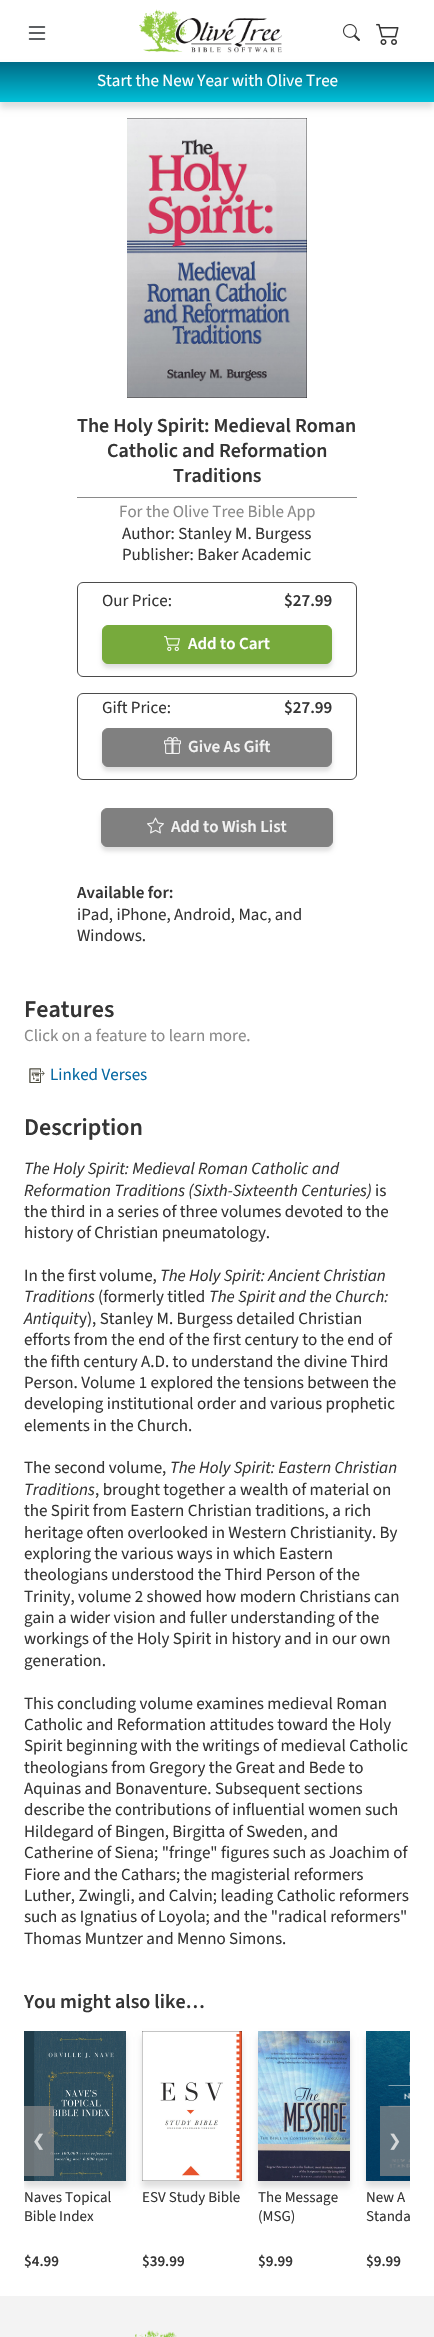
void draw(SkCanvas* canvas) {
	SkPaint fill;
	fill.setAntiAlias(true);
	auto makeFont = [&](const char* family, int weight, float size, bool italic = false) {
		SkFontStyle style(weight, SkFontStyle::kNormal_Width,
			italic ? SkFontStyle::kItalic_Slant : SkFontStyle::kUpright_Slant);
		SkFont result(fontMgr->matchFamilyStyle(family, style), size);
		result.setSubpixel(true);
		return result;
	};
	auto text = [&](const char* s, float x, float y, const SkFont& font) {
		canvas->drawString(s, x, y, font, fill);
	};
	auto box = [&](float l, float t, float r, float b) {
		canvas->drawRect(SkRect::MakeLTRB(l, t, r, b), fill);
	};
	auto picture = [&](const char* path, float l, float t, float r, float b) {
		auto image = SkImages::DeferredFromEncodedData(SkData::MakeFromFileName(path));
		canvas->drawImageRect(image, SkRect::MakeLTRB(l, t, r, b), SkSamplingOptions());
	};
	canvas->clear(0xFFFFFFFF);
	picture("image0.png", 28, 26, 46, 40);
	picture("image1.png", 139, 9, 282, 53);
	picture("image2.png", 343, 24, 360, 41);
	picture("image3.png", 376, 23, 399, 45);
	fill.setColor(0x21000000);
	fill.setMaskFilter(SkMaskFilter::MakeBlur(kNormal_SkBlurStyle, 3));
	canvas->drawRect(SkRect::MakeLTRB(0, 68, 434, 108), fill);
	fill.setMaskFilter(nullptr);
	{
		const SkColor colors[] = {0xFF006B87, 0xFF00C0D8};
		const float stops[] = {0, 1};
		const SkPoint ends[] = {{217, 62}, {217, 102}};
		fill.setShader(SkGradientShader::MakeLinear(ends, colors, stops, 2, SkTileMode::kClamp));
		fill.setAlpha(255);
	}
	box(0, 62, 434, 102);
	picture("image4.png", 127, 118, 307, 398);
	fill.setShader(nullptr);
	fill.setColor(0xFF8A8A8A);
	box(77, 497, 357, 498);
	fill.setStyle(SkPaint::kStroke_Style);
	fill.setStrokeWidth(1);
	fill.setColor(0xFF4B4B4B);
	canvas->drawRoundRect(SkRect::MakeLTRB(77.5f, 582.5f, 356.5f, 676.5f), 5.5f, 5.5f, fill);
	fill.setStyle(SkPaint::kFill_Style);
	fill.setColor(0x21000000);
	fill.setMaskFilter(SkMaskFilter::MakeBlur(kNormal_SkBlurStyle, 2));
	canvas->drawRoundRect(SkRect::MakeLTRB(102, 629, 332, 668), 6, 6, fill);
	fill.setMaskFilter(nullptr);
	fill.setColor(0xFF77AA3C);
	canvas->drawRoundRect(SkRect::MakeLTRB(102.5f, 625.5f, 331.5f, 663.5f), 5.5f, 5.5f, fill);
	fill.setStyle(SkPaint::kStroke_Style);
	canvas->drawRoundRect(SkRect::MakeLTRB(102.5f, 625.5f, 331.5f, 663.5f), 5.5f, 5.5f, fill);
	picture("image5.png", 164, 636, 180, 651);
	fill.setColor(0xFF4B4B4B);
	canvas->drawRoundRect(SkRect::MakeLTRB(77.5f, 693.5f, 356.5f, 779.5f), 5.5f, 5.5f, fill);
	fill.setStyle(SkPaint::kFill_Style);
	fill.setColor(0x21000000);
	fill.setMaskFilter(SkMaskFilter::MakeBlur(kNormal_SkBlurStyle, 2));
	canvas->drawRoundRect(SkRect::MakeLTRB(102, 732, 332, 771), 6, 6, fill);
	fill.setMaskFilter(nullptr);
	fill.setColor(0xFF808080);
	canvas->drawRoundRect(SkRect::MakeLTRB(102.5f, 728.5f, 331.5f, 766.5f), 5.5f, 5.5f, fill);
	fill.setStyle(SkPaint::kStroke_Style);
	canvas->drawRoundRect(SkRect::MakeLTRB(102.5f, 728.5f, 331.5f, 766.5f), 5.5f, 5.5f, fill);
	picture("image6.png", 164, 737, 181, 754);
	fill.setStyle(SkPaint::kFill_Style);
	fill.setColor(0x21000000);
	fill.setMaskFilter(SkMaskFilter::MakeBlur(kNormal_SkBlurStyle, 2));
	canvas->drawRoundRect(SkRect::MakeLTRB(101, 812, 333, 851), 6, 6, fill);
	fill.setMaskFilter(nullptr);
	fill.setColor(0xFF808080);
	canvas->drawRoundRect(SkRect::MakeLTRB(101.5f, 808.5f, 332.5f, 846.5f), 5.5f, 5.5f, fill);
	fill.setStyle(SkPaint::kStroke_Style);
	canvas->drawRoundRect(SkRect::MakeLTRB(101.5f, 808.5f, 332.5f, 846.5f), 5.5f, 5.5f, fill);
	picture("image7.png", 147, 817, 164, 834);
	picture("image8.png", 29, 1068, 45, 1083);
	canvas->save();
	canvas->clipRect(SkRect::MakeLTRB(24, 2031, 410, 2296));
	fill.setStyle(SkPaint::kFill_Style);
	fill.setColor(0x21000000);
	fill.setMaskFilter(SkMaskFilter::MakeBlur(kNormal_SkBlurStyle, 3));
	canvas->drawRect(SkRect::MakeLTRB(24, 2037, 126, 2187), fill);
	fill.setMaskFilter(nullptr);
	canvas->restore();
	picture("image9.png", 24, 2031, 126, 2181);
	fill.setColor(0xB38A8A8A);
	box(24, 2106, 54, 2176);
	canvas->save();
	canvas->clipRect(SkRect::MakeLTRB(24, 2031, 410, 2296));
	fill.setColor(0x21000000);
	fill.setMaskFilter(SkMaskFilter::MakeBlur(kNormal_SkBlurStyle, 3));
	canvas->drawRect(SkRect::MakeLTRB(366, 2037, 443, 2187), fill);
	fill.setMaskFilter(nullptr);
	canvas->restore();
	picture("image12.png", 366, 2031, 410, 2181);
	fill.setColor(0xB38A8A8A);
	box(380, 2106, 410, 2176);
	fill.setColor(0x21000000);
	fill.setMaskFilter(SkMaskFilter::MakeBlur(kNormal_SkBlurStyle, 3));
	canvas->drawRect(SkRect::MakeLTRB(142, 2037, 242, 2187), fill);
	fill.setMaskFilter(nullptr);
	picture("image10.png", 142, 2031, 242, 2181);
	fill.setMaskFilter(SkMaskFilter::MakeBlur(kNormal_SkBlurStyle, 3));
	canvas->drawRect(SkRect::MakeLTRB(258, 2037, 350, 2187), fill);
	fill.setMaskFilter(nullptr);
	picture("image11.png", 258, 2031, 350, 2181);
	fill.setColor(0xFFF3F3F3);
	box(0, 2296, 434, 2337);
	picture("image13.png", 135, 2330, 177, 2337);
	auto font1 = makeFont("Source Sans 3", 400, 17);
	fill.setColor(0xFFFFFFFF);
	text("Start the New Year with Olive Tree", 97, 86, font1);
	auto font2 = makeFont("Source Sans 3", 600, 20);
	fill.setColor(0xFF353535);
	text("The Holy Spirit: Medieval Roman", 77, 432, font2);
	text("Catholic and Reformation", 107, 457, font2);
	text("Traditions", 173, 482, font2);
	fill.setColor(0xFF8A8A8A);
	text("For the Olive Tree Bible App", 119, 517, font1);
	fill.setColor(0xFF353535);
	text("Author: Stanley M. Burgess", 122, 539, font1);
	text("Publisher: Baker Academic", 122, 560, font1);
	text("Our Price:", 102, 606, font1);
	auto font3 = makeFont("Source Sans 3", 600, 17);
	text("$27.99", 284, 606, font3);
	fill.setColor(0xFFFFFFFF);
	text("Add to Cart", 188, 649, font3);
	fill.setColor(0xFF353535);
	text("Gift Price:", 102, 713, font1);
	text("$27.99", 284, 713, font3);
	fill.setColor(0xFFF3F3F3);
	text("Give As Gift", 188, 752, font3);
	text("Add to Wish List", 171, 832, font3);
	fill.setColor(0xFF353535);
	text("Available for:", 77, 898, font3);
	text("iPad, iPhone, Android, Mac, and", 77, 920, font1);
	text("Windows.", 77, 941, font1);
	auto font4 = makeFont("Source Sans 3", 600, 24);
	text("Features", 24, 1017, font4);
	fill.setColor(0xFF8A8A8A);
	text("Click on a feature to learn more.", 24, 1041, font1);
	fill.setColor(0xFF0769A3);
	text("Linked Verses", 50, 1080, font1);
	fill.setColor(0xFF353535);
	text("Description", 24, 1135, font4);
	auto font5 = makeFont("Source Sans 3", 400, 17, true);
	text("The Holy Spirit: Medieval Roman Catholic and", 24, 1174, font5);
	text("Reformation Traditions (Sixth-Sixteenth Centuries)", 24, 1196, font5);
	text("is", 375, 1196, font1);
	text("the third in a series of three volumes devoted to the", 24, 1217, font1);
	text("history of Christian pneumatology.", 24, 1238, font1);
	text("In the first volume,", 24, 1281, font1);
	text("The Holy Spirit: Ancient Christian", 160, 1281, font5);
	text("Traditions", 24, 1302, font5);
	text("(formerly titled", 98, 1302, font1);
	text("The Spirit and the Church:", 209, 1302, font5);
	text("Antiquit", 24, 1324, font5);
	text("y), Stanley M. Burgess detailed Christian", 79, 1324, font1);
	text("efforts from the end of the first century to the end of", 24, 1345, font1);
	text("the fifth century A.D. to understand the divine Third", 24, 1367, font1);
	text("Person. Volume 1 explored the tensions between the", 24, 1388, font1);
	text("developing institutional order and various prophetic", 24, 1409, font1);
	text("elements in the Church.", 24, 1431, font1);
	text("The second volume,", 24, 1473, font1);
	text("The Holy Spirit: Eastern Christian", 170, 1473, font5);
	text("Traditions", 24, 1495, font5);
	text(", brought together a wealth of material on", 95, 1495, font1);
	text("the Spirit from Eastern Christian traditions, a rich", 24, 1516, font1);
	text("heritage often overlooked in Western Christianity. By", 24, 1538, font1);
	text("exploring the various ways in which Eastern", 24, 1559, font1);
	text("theologians understood the Third Person of the", 24, 1580, font1);
	text("Trinity, volume 2 showed how modern Christians can", 24, 1602, font1);
	text("gain a wider vision and fuller understanding of the", 24, 1623, font1);
	text("workings of the Holy Spirit in history and in our own", 24, 1644, font1);
	text("generation.", 24, 1666, font1);
	text("This concluding volume examines medieval Roman", 24, 1709, font1);
	text("Catholic and Reformation attitudes toward the Holy", 24, 1730, font1);
	text("Spirit beginning with the writings of medieval Catholic", 24, 1751, font1);
	text("theologians from Gregory the Great and Bede to", 24, 1773, font1);
	text("Aquinas and Bonaventure. Subsequent sections", 24, 1794, font1);
	text("describe the contributions of influential women such", 24, 1815, font1);
	text("Hildegard of Bingen, Birgitta of Sweden, and", 24, 1837, font1);
	text("Catherine of Siena; \"fringe\" figures such as Joachim of", 24, 1858, font1);
	text("Fiore and the Cathars; the magisterial reformers", 24, 1880, font1);
	text("Luther, Zwingli, and Calvin; leading Catholic reformers", 24, 1901, font1);
	text("such as Ignatius of Loyola; and the \"radical reformers\"", 24, 1922, font1);
	text("Thomas Muntzer and Menno Simons.", 24, 1944, font1);
	text("You might also like…", 24, 2008, font2);
	auto font6 = makeFont("DejaVu Sans", 400, 16);
	fill.setColor(0xFFD4D7D8);
	text("❮", 32, 2146, font6);
	text("❯", 388, 2146, font6);
	auto font7 = makeFont("Source Sans 3", 400, 15);
	fill.setColor(0xFF353535);
	text("Naves Topical", 24, 2202, font7);
	text("Bible Index", 24, 2221, font7);
	auto font8 = makeFont("Source Sans 3", 600, 15);
	text("$4.99", 24, 2266, font8);
	text("ESV Study Bible", 142, 2202, font7);
	text("$39.99", 142, 2266, font8);
	text("The Message", 258, 2202, font7);
	text("(MSG)", 258, 2221, font7);
	text("$9.99", 258, 2266, font8);
	text("New A", 366, 2202, font7);
	text("Standa", 366, 2221, font7);
	text("$9.99", 366, 2266, font8);
}
